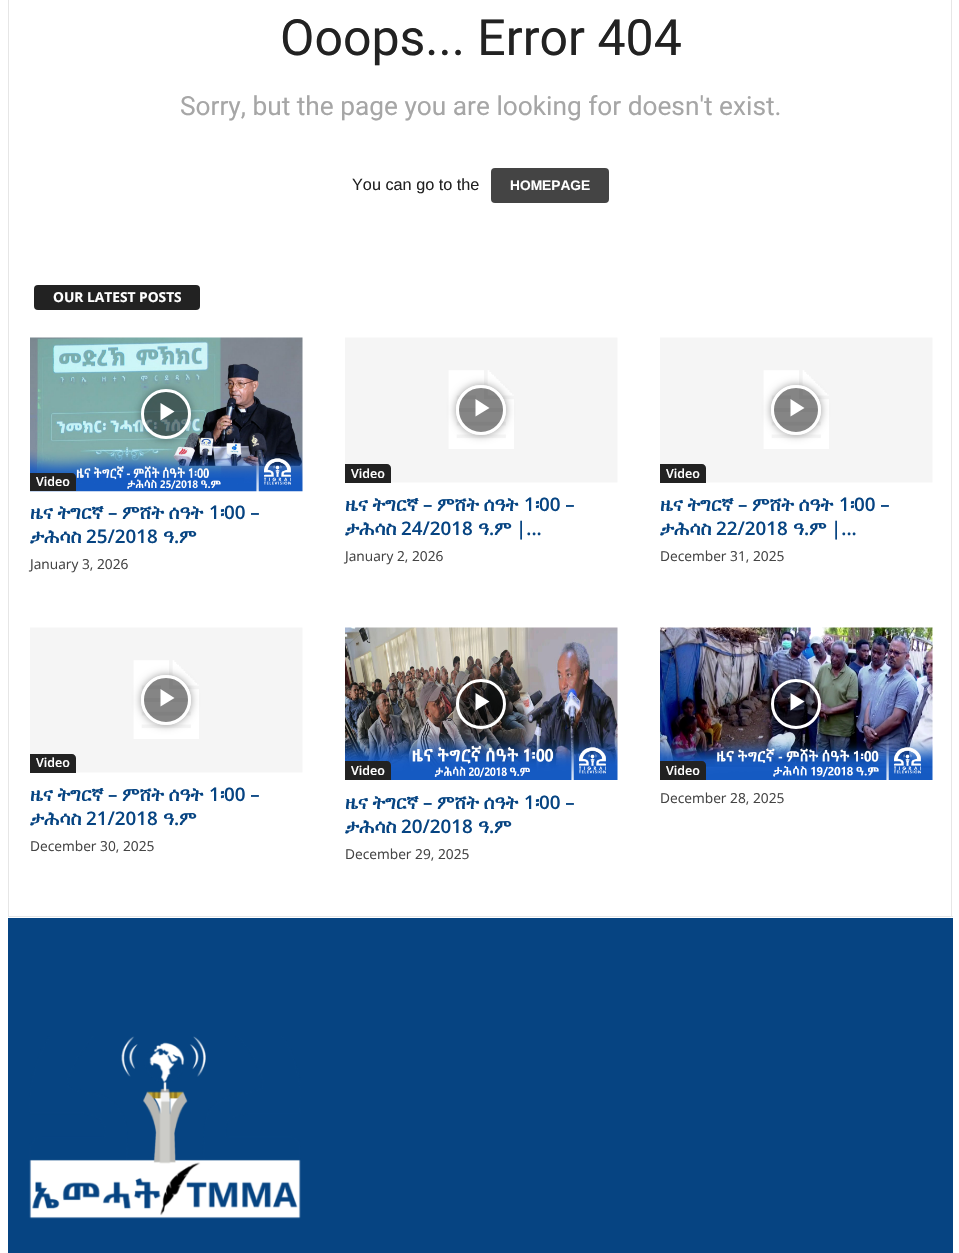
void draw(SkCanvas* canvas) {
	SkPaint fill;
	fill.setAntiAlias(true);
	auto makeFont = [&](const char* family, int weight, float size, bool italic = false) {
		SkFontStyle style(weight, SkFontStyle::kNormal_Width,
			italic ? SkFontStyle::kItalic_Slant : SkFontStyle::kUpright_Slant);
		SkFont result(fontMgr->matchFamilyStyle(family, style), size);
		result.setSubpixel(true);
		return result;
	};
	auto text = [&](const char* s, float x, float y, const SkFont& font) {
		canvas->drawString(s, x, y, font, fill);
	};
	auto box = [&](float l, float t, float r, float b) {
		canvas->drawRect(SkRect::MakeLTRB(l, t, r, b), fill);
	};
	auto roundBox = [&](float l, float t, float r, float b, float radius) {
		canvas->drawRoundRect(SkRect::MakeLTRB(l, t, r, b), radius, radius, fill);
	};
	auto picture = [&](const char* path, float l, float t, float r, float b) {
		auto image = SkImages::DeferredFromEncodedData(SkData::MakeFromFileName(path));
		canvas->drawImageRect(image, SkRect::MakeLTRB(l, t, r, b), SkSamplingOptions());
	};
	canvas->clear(0xFFFFFFFF);
	fill.setColor(0xFFE6E6E6);
	box(8, 916, 953, 917);
	box(8, 0, 9, 916);
	fill.setColor(0xFF444444);
	roundBox(491, 168, 609, 203, 4);
	fill.setColor(0xFF222222);
	roundBox(34, 285, 200, 310, 4);
	picture("image0.png", 30, 337, 303, 492);
	canvas->save();
	canvas->clipPath(SkPathBuilder(SkPathFillType::kEvenOdd).moveTo(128, 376).lineTo(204, 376).lineTo(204, 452).lineTo(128, 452).close().moveTo(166, 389).cubicTo(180, 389, 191, 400, 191, 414).cubicTo(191, 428, 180, 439, 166, 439).cubicTo(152, 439, 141, 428, 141, 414).cubicTo(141, 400, 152, 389, 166, 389).close().detach(), true);
	fill.setColor(0x66000000);
	fill.setMaskFilter(SkMaskFilter::MakeBlur(kNormal_SkBlurStyle, 4));
	canvas->drawRoundRect(SkRect::MakeLTRB(141, 389, 191, 439), 25, 25, fill);
	fill.setMaskFilter(nullptr);
	canvas->restore();
	fill.setColor(0x7A000000);
	canvas->drawCircle(166, 414, 23.5f, fill);
	fill.setStyle(SkPaint::kStroke_Style);
	fill.setStrokeWidth(3);
	fill.setColor(0xFFFFFFFF);
	canvas->drawCircle(166, 414, 23.5f, fill);
	fill.setStyle(SkPaint::kFill_Style);
	canvas->drawPath(SkPathBuilder().moveTo(160.5f, 403).lineTo(160.5f, 420.5f).lineTo(174.5f, 411.5f).close().detach(), fill);
	fill.setColor(0xFF222222);
	canvas->drawPath(SkPathBuilder().moveTo(30, 473).lineTo(72, 473).cubicTo(74, 473, 76, 475, 76, 477).lineTo(76, 491).lineTo(30, 491).close().detach(), fill);
	picture("image1.png", 345, 337, 618, 483);
	canvas->save();
	canvas->clipPath(SkPathBuilder(SkPathFillType::kEvenOdd).moveTo(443, 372).lineTo(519, 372).lineTo(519, 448).lineTo(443, 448).close().moveTo(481, 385).cubicTo(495, 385, 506, 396, 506, 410).cubicTo(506, 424, 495, 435, 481, 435).cubicTo(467, 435, 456, 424, 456, 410).cubicTo(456, 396, 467, 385, 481, 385).close().detach(), true);
	fill.setColor(0x66000000);
	fill.setMaskFilter(SkMaskFilter::MakeBlur(kNormal_SkBlurStyle, 4));
	canvas->drawRoundRect(SkRect::MakeLTRB(456, 385, 506, 435), 25, 25, fill);
	fill.setMaskFilter(nullptr);
	canvas->restore();
	fill.setColor(0x7A000000);
	canvas->drawCircle(481, 410, 23.5f, fill);
	fill.setStyle(SkPaint::kStroke_Style);
	fill.setColor(0xFFFFFFFF);
	canvas->drawCircle(481, 410, 23.5f, fill);
	fill.setStyle(SkPaint::kFill_Style);
	canvas->drawPath(SkPathBuilder().moveTo(475.5f, 399).lineTo(475.5f, 416.5f).lineTo(489.5f, 408).close().detach(), fill);
	fill.setColor(0xFF222222);
	canvas->drawPath(SkPathBuilder().moveTo(345, 464).lineTo(387, 464).cubicTo(389, 464, 391, 466, 391, 468).lineTo(391, 483).lineTo(345, 483).close().detach(), fill);
	picture("image1.png", 660, 337, 933, 483);
	canvas->save();
	canvas->clipPath(SkPathBuilder(SkPathFillType::kEvenOdd).moveTo(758, 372).lineTo(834, 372).lineTo(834, 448).lineTo(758, 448).close().moveTo(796, 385).cubicTo(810, 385, 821, 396, 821, 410).cubicTo(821, 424, 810, 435, 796, 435).cubicTo(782, 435, 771, 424, 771, 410).cubicTo(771, 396, 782, 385, 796, 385).close().detach(), true);
	fill.setColor(0x66000000);
	fill.setMaskFilter(SkMaskFilter::MakeBlur(kNormal_SkBlurStyle, 4));
	canvas->drawRoundRect(SkRect::MakeLTRB(771, 385, 821, 435), 25, 25, fill);
	fill.setMaskFilter(nullptr);
	canvas->restore();
	fill.setColor(0x7A000000);
	canvas->drawCircle(796, 410, 23.5f, fill);
	fill.setStyle(SkPaint::kStroke_Style);
	fill.setColor(0xFFFFFFFF);
	canvas->drawCircle(796, 410, 23.5f, fill);
	fill.setStyle(SkPaint::kFill_Style);
	canvas->drawPath(SkPathBuilder().moveTo(790.5f, 399).lineTo(790.5f, 416.5f).lineTo(804.5f, 408).close().detach(), fill);
	fill.setColor(0xFF222222);
	canvas->drawPath(SkPathBuilder().moveTo(660, 464).lineTo(702, 464).cubicTo(704, 464, 706, 466, 706, 468).lineTo(706, 483).lineTo(660, 483).close().detach(), fill);
	picture("image1.png", 30, 627, 303, 773);
	canvas->save();
	canvas->clipPath(SkPathBuilder(SkPathFillType::kEvenOdd).moveTo(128, 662).lineTo(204, 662).lineTo(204, 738).lineTo(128, 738).close().moveTo(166, 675).cubicTo(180, 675, 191, 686, 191, 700).cubicTo(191, 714, 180, 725, 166, 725).cubicTo(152, 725, 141, 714, 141, 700).cubicTo(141, 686, 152, 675, 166, 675).close().detach(), true);
	fill.setColor(0x66000000);
	fill.setMaskFilter(SkMaskFilter::MakeBlur(kNormal_SkBlurStyle, 4));
	canvas->drawRoundRect(SkRect::MakeLTRB(141, 675, 191, 725), 25, 25, fill);
	fill.setMaskFilter(nullptr);
	canvas->restore();
	fill.setColor(0x7A000000);
	canvas->drawCircle(166, 700, 23.5f, fill);
	fill.setStyle(SkPaint::kStroke_Style);
	fill.setColor(0xFFFFFFFF);
	canvas->drawCircle(166, 700, 23.5f, fill);
	fill.setStyle(SkPaint::kFill_Style);
	canvas->drawPath(SkPathBuilder().moveTo(160.5f, 689).lineTo(160.5f, 706.5f).lineTo(174.5f, 698).close().detach(), fill);
	fill.setColor(0xFF222222);
	canvas->drawPath(SkPathBuilder().moveTo(30, 754).lineTo(72, 754).cubicTo(74, 754, 76, 756, 76, 758).lineTo(76, 773).lineTo(30, 773).close().detach(), fill);
	picture("image2.png", 345, 627, 618, 780);
	canvas->save();
	canvas->clipPath(SkPathBuilder(SkPathFillType::kEvenOdd).moveTo(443, 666).lineTo(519, 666).lineTo(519, 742).lineTo(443, 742).close().moveTo(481, 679).cubicTo(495, 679, 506, 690, 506, 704).cubicTo(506, 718, 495, 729, 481, 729).cubicTo(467, 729, 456, 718, 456, 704).cubicTo(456, 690, 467, 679, 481, 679).close().detach(), true);
	fill.setColor(0x66000000);
	fill.setMaskFilter(SkMaskFilter::MakeBlur(kNormal_SkBlurStyle, 4));
	canvas->drawRoundRect(SkRect::MakeLTRB(456, 679, 506, 729), 25, 25, fill);
	fill.setMaskFilter(nullptr);
	canvas->restore();
	fill.setColor(0x7A000000);
	canvas->drawCircle(481, 704, 23.5f, fill);
	fill.setStyle(SkPaint::kStroke_Style);
	fill.setColor(0xFFFFFFFF);
	canvas->drawCircle(481, 704, 23.5f, fill);
	fill.setStyle(SkPaint::kFill_Style);
	canvas->drawPath(SkPathBuilder().moveTo(475.5f, 693).lineTo(475.5f, 710.5f).lineTo(489.5f, 701.5f).close().detach(), fill);
	fill.setColor(0xFF222222);
	canvas->drawPath(SkPathBuilder().moveTo(345, 761).lineTo(387, 761).cubicTo(389, 761, 391, 763, 391, 765).lineTo(391, 780).lineTo(345, 780).close().detach(), fill);
	picture("image3.png", 660, 627, 933, 780);
	canvas->save();
	canvas->clipPath(SkPathBuilder(SkPathFillType::kEvenOdd).moveTo(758, 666).lineTo(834, 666).lineTo(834, 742).lineTo(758, 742).close().moveTo(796, 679).cubicTo(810, 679, 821, 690, 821, 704).cubicTo(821, 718, 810, 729, 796, 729).cubicTo(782, 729, 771, 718, 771, 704).cubicTo(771, 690, 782, 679, 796, 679).close().detach(), true);
	fill.setColor(0x66000000);
	fill.setMaskFilter(SkMaskFilter::MakeBlur(kNormal_SkBlurStyle, 4));
	canvas->drawRoundRect(SkRect::MakeLTRB(771, 679, 821, 729), 25, 25, fill);
	fill.setMaskFilter(nullptr);
	canvas->restore();
	fill.setColor(0x7A000000);
	canvas->drawCircle(796, 704, 23.5f, fill);
	fill.setStyle(SkPaint::kStroke_Style);
	fill.setColor(0xFFFFFFFF);
	canvas->drawCircle(796, 704, 23.5f, fill);
	fill.setStyle(SkPaint::kFill_Style);
	canvas->drawPath(SkPathBuilder().moveTo(790.5f, 693).lineTo(790.5f, 710.5f).lineTo(804.5f, 701.5f).close().detach(), fill);
	fill.setColor(0xFF222222);
	canvas->drawPath(SkPathBuilder().moveTo(660, 761).lineTo(702, 761).cubicTo(704, 761, 706, 763, 706, 765).lineTo(706, 780).lineTo(660, 780).close().detach(), fill);
	fill.setColor(0xFFE6E6E6);
	box(951, 0, 952, 916);
	fill.setColor(0xFF064482);
	box(8, 918, 953, 1253);
	picture("image4.png", 29, 1036, 301, 1219);
	auto font1 = makeFont("Roboto", 400, 50);
	fill.setColor(0xFF222222);
	text("Ooops... Error 404", 280, 55, font1);
	auto font2 = makeFont("Roboto", 400, 26.25f);
	fill.setColor(0xFFA6A6A6);
	text("Sorry, but the page you are looking for doesn't exist.", 180, 115, font2);
	auto font3 = makeFont("Liberation Sans", 400, 16.25f);
	fill.setColor(0xFF222222);
	text("You can go to the", 352, 190, font3);
	auto font4 = makeFont("Liberation Sans", 700, 13.75f);
	fill.setColor(0xFFFFFFFF);
	text("HOMEPAGE", 510, 190, font4);
	auto font5 = makeFont("Open Sans", 700, 13.75f);
	text("OUR LATEST POSTS", 53, 302, font5);
	auto font6 = makeFont("Open Sans", 600, 12.5f);
	text("Video", 36, 486, font6);
	auto font7 = makeFont("FreeSerif", 700, 18.75f);
	fill.setColor(0xFF064482);
	text("ዜና ትግርኛ", 30, 519, font7);
	auto font8 = makeFont("Open Sans", 600, 18.75f);
	text("–", 108, 519, font8);
	text("ምሸት ሰዓት", 122, 519, font7);
	text("1", 209, 519, font8);
	text("፡", 220, 519, font7);
	text("00 –", 224, 519, font8);
	text("ታሕሳስ", 30, 543, font7);
	text("25/2018", 86, 543, font8);
	text("ዓ", 163, 543, font7);
	text(".", 174, 543, font8);
	text("ም", 179, 543, font7);
	auto font9 = makeFont("Open Sans", 400, 13.75f);
	fill.setColor(0xFF444444);
	text("January 3, 2026", 30, 569, font9);
	fill.setColor(0xFFFFFFFF);
	text("Video", 351, 478, font6);
	fill.setColor(0xFF064482);
	text("ዜና ትግርኛ", 345, 511, font7);
	text("–", 423, 511, font8);
	text("ምሸት ሰዓት", 437, 511, font7);
	text("1", 524, 511, font8);
	text("፡", 535, 511, font7);
	text("00 –", 539, 511, font8);
	text("ታሕሳስ", 345, 535, font7);
	text("24/2018", 401, 535, font8);
	text("ዓ", 478, 535, font7);
	text(".", 489, 535, font8);
	text("ም", 494, 535, font7);
	text("|...", 516, 535, font8);
	fill.setColor(0xFF444444);
	text("January 2, 2026", 345, 561, font9);
	fill.setColor(0xFFFFFFFF);
	text("Video", 666, 478, font6);
	fill.setColor(0xFF064482);
	text("ዜና ትግርኛ", 660, 511, font7);
	text("–", 738, 511, font8);
	text("ምሸት ሰዓት", 752, 511, font7);
	text("1", 839, 511, font8);
	text("፡", 850, 511, font7);
	text("00 –", 854, 511, font8);
	text("ታሕሳስ", 660, 535, font7);
	text("22/2018", 716, 535, font8);
	text("ዓ", 793, 535, font7);
	text(".", 804, 535, font8);
	text("ም", 809, 535, font7);
	text("|...", 831, 535, font8);
	fill.setColor(0xFF444444);
	text("December 31, 2025", 660, 561, font9);
	fill.setColor(0xFFFFFFFF);
	text("Video", 36, 767, font6);
	fill.setColor(0xFF064482);
	text("ዜና ትግርኛ", 30, 801, font7);
	text("–", 108, 801, font8);
	text("ምሸት ሰዓት", 122, 801, font7);
	text("1", 209, 801, font8);
	text("፡", 220, 801, font7);
	text("00 –", 224, 801, font8);
	text("ታሕሳስ", 30, 825, font7);
	text("21/2018", 86, 825, font8);
	text("ዓ", 163, 825, font7);
	text(".", 174, 825, font8);
	text("ም", 179, 825, font7);
	fill.setColor(0xFF444444);
	text("December 30, 2025", 30, 851, font9);
	fill.setColor(0xFFFFFFFF);
	text("Video", 351, 775, font6);
	fill.setColor(0xFF064482);
	text("ዜና ትግርኛ", 345, 809, font7);
	text("–", 423, 809, font8);
	text("ምሸት ሰዓት", 437, 809, font7);
	text("1", 524, 809, font8);
	text("፡", 535, 809, font7);
	text("00 –", 539, 809, font8);
	text("ታሕሳስ", 345, 833, font7);
	text("20/2018", 401, 833, font8);
	text("ዓ", 478, 833, font7);
	text(".", 489, 833, font8);
	text("ም", 494, 833, font7);
	fill.setColor(0xFF444444);
	text("December 29, 2025", 345, 859, font9);
	fill.setColor(0xFFFFFFFF);
	text("Video", 666, 775, font6);
	fill.setColor(0xFF444444);
	text("December 28, 2025", 660, 803, font9);
}
